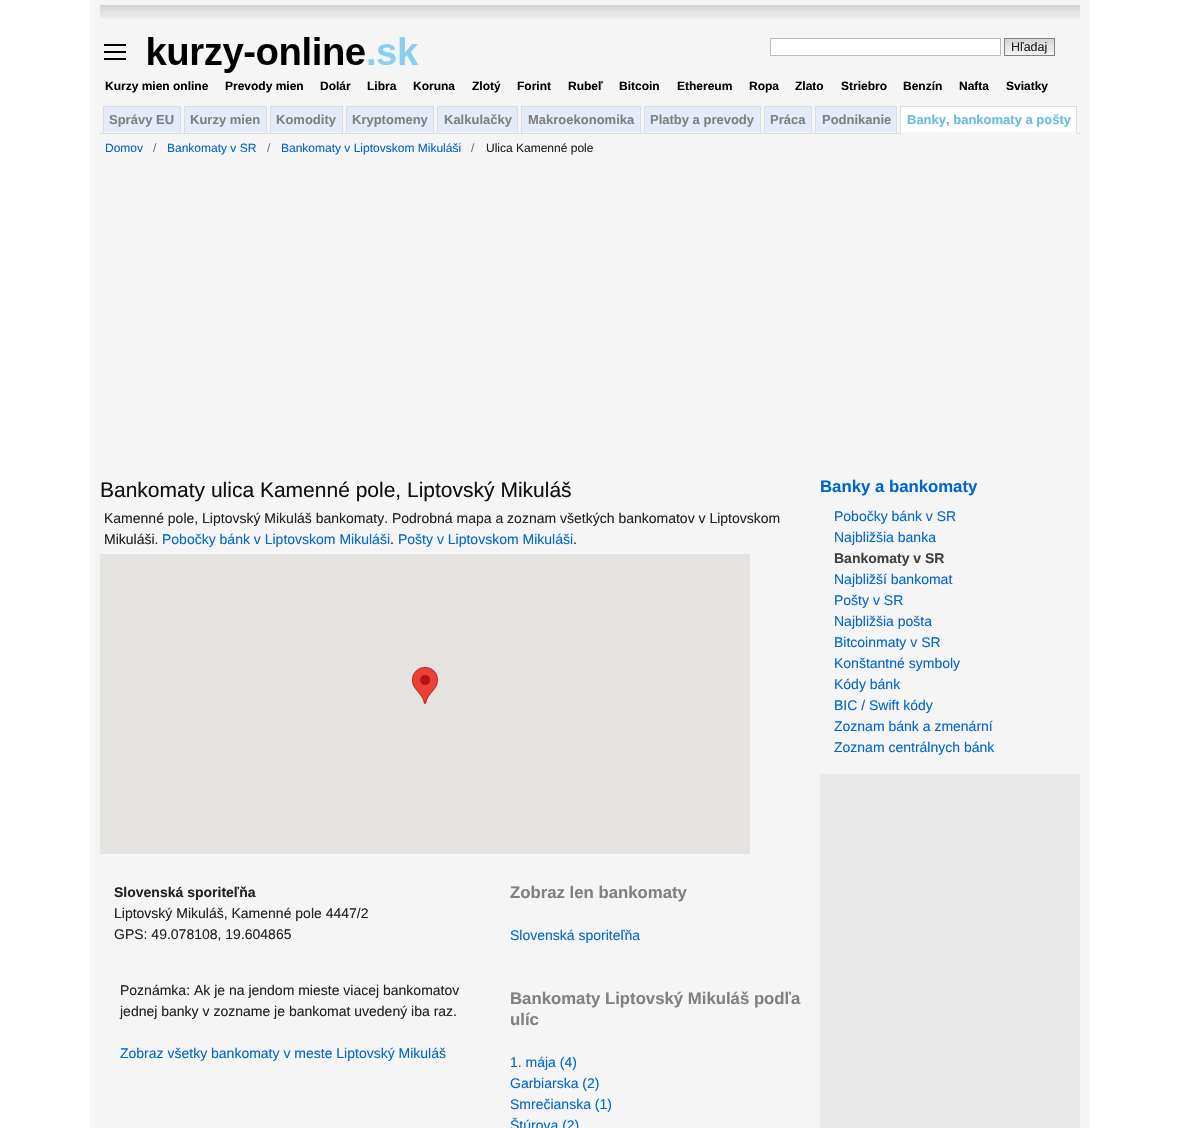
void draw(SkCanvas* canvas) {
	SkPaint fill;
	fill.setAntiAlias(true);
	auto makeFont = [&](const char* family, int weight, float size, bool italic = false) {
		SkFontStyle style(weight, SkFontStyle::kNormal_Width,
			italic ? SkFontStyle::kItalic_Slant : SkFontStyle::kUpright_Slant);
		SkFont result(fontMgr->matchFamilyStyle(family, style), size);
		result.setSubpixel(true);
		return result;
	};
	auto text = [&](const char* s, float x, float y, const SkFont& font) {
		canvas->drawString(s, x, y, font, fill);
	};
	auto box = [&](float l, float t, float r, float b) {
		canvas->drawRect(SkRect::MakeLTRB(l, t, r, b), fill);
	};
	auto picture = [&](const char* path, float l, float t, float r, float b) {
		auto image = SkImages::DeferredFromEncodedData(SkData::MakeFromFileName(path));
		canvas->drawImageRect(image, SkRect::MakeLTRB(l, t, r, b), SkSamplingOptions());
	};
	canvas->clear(0xFFFFFFFF);
	fill.setColor(0xFFF5F5F5);
	box(90, 0, 1090, 1128);
	picture("image0.png", 100, 5, 1080, 19);
	fill.setColor(0xFF000000);
	box(104, 44, 126, 46);
	box(104, 58, 126, 60);
	box(104, 51, 126, 53);
	picture("image1.png", 148, 37, 419, 73);
	fill.setColor(0xFFFFFFFF);
	canvas->drawRect(SkRect::MakeLTRB(770.5f, 38.5f, 1000.5f, 55.5f), fill);
	fill.setStyle(SkPaint::kStroke_Style);
	fill.setStrokeWidth(1);
	fill.setColor(0xFFBBBBBB);
	canvas->drawRect(SkRect::MakeLTRB(770.5f, 38.5f, 1000.5f, 55.5f), fill);
	picture("image2.png", 1005, 39, 1054, 55);
	fill.setColor(0xFF808080);
	canvas->drawRect(SkRect::MakeLTRB(1004.5f, 38.5f, 1054.5f, 55.5f), fill);
	fill.setStyle(SkPaint::kFill_Style);
	fill.setColor(0xFFDDDDDD);
	box(100, 133, 1080, 134);
	fill.setStyle(SkPaint::kStroke_Style);
	canvas->drawRect(SkRect::MakeLTRB(103.5f, 106.5f, 180.5f, 133.5f), fill);
	fill.setStyle(SkPaint::kFill_Style);
	fill.setColor(0xFFE5ECF9);
	box(104, 107, 180, 132);
	fill.setStyle(SkPaint::kStroke_Style);
	fill.setColor(0xFFDDDDDD);
	canvas->drawRect(SkRect::MakeLTRB(184.5f, 106.5f, 266.5f, 133.5f), fill);
	fill.setStyle(SkPaint::kFill_Style);
	fill.setColor(0xFFE5ECF9);
	box(185, 107, 266, 132);
	fill.setStyle(SkPaint::kStroke_Style);
	fill.setColor(0xFFDDDDDD);
	canvas->drawRect(SkRect::MakeLTRB(270.5f, 106.5f, 342.5f, 133.5f), fill);
	fill.setStyle(SkPaint::kFill_Style);
	fill.setColor(0xFFE5ECF9);
	box(271, 107, 342, 132);
	fill.setStyle(SkPaint::kStroke_Style);
	fill.setColor(0xFFDDDDDD);
	canvas->drawRect(SkRect::MakeLTRB(346.5f, 106.5f, 433.5f, 133.5f), fill);
	fill.setStyle(SkPaint::kFill_Style);
	fill.setColor(0xFFE5ECF9);
	box(347, 107, 433, 132);
	fill.setStyle(SkPaint::kStroke_Style);
	fill.setColor(0xFFDDDDDD);
	canvas->drawRect(SkRect::MakeLTRB(437.5f, 106.5f, 517.5f, 133.5f), fill);
	fill.setStyle(SkPaint::kFill_Style);
	fill.setColor(0xFFE5ECF9);
	box(438, 107, 517, 132);
	fill.setStyle(SkPaint::kStroke_Style);
	fill.setColor(0xFFDDDDDD);
	canvas->drawRect(SkRect::MakeLTRB(521.5f, 106.5f, 640.5f, 133.5f), fill);
	fill.setStyle(SkPaint::kFill_Style);
	fill.setColor(0xFFE5ECF9);
	box(522, 107, 640, 132);
	fill.setStyle(SkPaint::kStroke_Style);
	fill.setColor(0xFFDDDDDD);
	canvas->drawRect(SkRect::MakeLTRB(644.5f, 106.5f, 760.5f, 133.5f), fill);
	fill.setStyle(SkPaint::kFill_Style);
	fill.setColor(0xFFE5ECF9);
	box(645, 107, 760, 132);
	fill.setStyle(SkPaint::kStroke_Style);
	fill.setColor(0xFFDDDDDD);
	canvas->drawRect(SkRect::MakeLTRB(764.5f, 106.5f, 811.5f, 133.5f), fill);
	fill.setStyle(SkPaint::kFill_Style);
	fill.setColor(0xFFE5ECF9);
	box(765, 107, 811, 132);
	fill.setStyle(SkPaint::kStroke_Style);
	fill.setColor(0xFFDDDDDD);
	canvas->drawRect(SkRect::MakeLTRB(815.5f, 106.5f, 896.5f, 133.5f), fill);
	fill.setStyle(SkPaint::kFill_Style);
	fill.setColor(0xFFE5ECF9);
	box(816, 107, 896, 132);
	fill.setColor(0xFFFFFFFF);
	box(901, 107, 1076, 132);
	fill.setColor(0xFFDDDDDD);
	box(900, 106, 1077, 107);
	box(1076, 106, 1077, 134);
	fill.setColor(0xFFF5F5F5);
	box(900, 133, 1077, 134);
	fill.setColor(0xFFDDDDDD);
	box(900, 106, 901, 134);
	fill.setColor(0xFFE5E3DF);
	box(100, 554, 750, 854);
	picture("image3.png", 412, 667, 438, 704);
	fill.setColor(0xFFE8E8E8);
	box(820, 774, 1080, 1128);
	auto font1 = makeFont("Liberation Sans", 400, 12.5f);
	fill.setColor(0xFF222222);
	text("Hľadaj", 1011, 51, font1);
	auto font2 = makeFont("Liberation Sans", 700, 12);
	fill.setColor(0xFF000000);
	text("Kurzy mien online", 105, 90, font2);
	text("Prevody mien", 225, 90, font2);
	text("Dolár", 320, 90, font2);
	text("Libra", 367, 90, font2);
	text("Koruna", 413, 90, font2);
	text("Zlotý", 472, 90, font2);
	text("Forint", 517, 90, font2);
	text("Rubeľ", 568, 90, font2);
	text("Bitcoin", 619, 90, font2);
	text("Ethereum", 677, 90, font2);
	text("Ropa", 749, 90, font2);
	text("Zlato", 795, 90, font2);
	text("Striebro", 841, 90, font2);
	text("Benzín", 903, 90, font2);
	text("Nafta", 959, 90, font2);
	text("Sviatky", 1006, 90, font2);
	auto font3 = makeFont("Liberation Sans", 700, 13);
	fill.setColor(0xFF808080);
	text("Správy EU", 109, 124, font3);
	text("Kurzy mien", 190, 124, font3);
	text("Komodity", 276, 124, font3);
	text("Kryptomeny", 352, 124, font3);
	text("Kalkulačky", 444, 124, font3);
	text("Makroekonomika", 528, 124, font3);
	text("Platby a prevody", 650, 124, font3);
	text("Práca", 770, 124, font3);
	text("Podnikanie", 822, 124, font3);
	fill.setColor(0xFF66BCE1);
	text("Banky, bankomaty a pošty", 907, 124, font3);
	auto font4 = makeFont("Liberation Sans", 400, 12);
	fill.setColor(0xFF0066CC);
	text("Domov", 105, 152, font4);
	fill.setColor(0xFF6C757D);
	text("/", 153, 152, font4);
	fill.setColor(0xFF0066CC);
	text("Bankomaty v SR", 167, 152, font4);
	fill.setColor(0xFF6C757D);
	text("/", 267, 152, font4);
	fill.setColor(0xFF0066CC);
	text("Bankomaty v Liptovskom Mikuláši", 281, 152, font4);
	fill.setColor(0xFF6C757D);
	text("/", 471, 152, font4);
	fill.setColor(0xFF222222);
	text("Ulica Kamenné pole", 486, 152, font4);
	auto font5 = makeFont("Liberation Sans", 400, 21);
	fill.setColor(0xFF111111);
	text("Bankomaty ulica Kamenné pole, Liptovský Mikuláš", 100, 497, font5);
	auto font6 = makeFont("Liberation Sans", 400, 14);
	fill.setColor(0xFF222222);
	text("Kamenné pole, Liptovský Mikuláš bankomaty. Podrobná mapa a zoznam všetkých bankomatov v Liptovskom", 104, 523, font6);
	text("Mikuláši.", 104, 544, font6);
	fill.setColor(0xFF0066CC);
	text("Pobočky bánk v Liptovskom Mikuláši", 162, 544, font6);
	fill.setColor(0xFF222222);
	text(".", 390, 544, font6);
	fill.setColor(0xFF0066CC);
	text("Pošty v Liptovskom Mikuláši", 398, 544, font6);
	fill.setColor(0xFF222222);
	text(".", 573, 544, font6);
	auto font7 = makeFont("Liberation Sans", 700, 14);
	text("Slovenská sporiteľňa", 114, 897, font7);
	text("Liptovský Mikuláš, Kamenné pole 4447/2", 114, 918, font6);
	text("GPS: 49.078108, 19.604865", 114, 939, font6);
	text("Poznámka: Ak je na jendom mieste viacej bankomatov", 120, 995, font6);
	text("jednej banky v zozname je bankomat uvedený iba raz.", 120, 1016, font6);
	fill.setColor(0xFF0066CC);
	text("Zobraz všetky bankomaty v meste Liptovský Mikuláš", 120, 1058, font6);
	auto font8 = makeFont("Liberation Sans", 700, 16.75f);
	fill.setColor(0xFF808080);
	text("Zobraz len bankomaty", 510, 898, font8);
	fill.setColor(0xFF0066CC);
	text("Slovenská sporiteľňa", 510, 940, font6);
	fill.setColor(0xFF808080);
	text("Bankomaty Liptovský Mikuláš podľa", 510, 1004, font8);
	text("ulíc", 510, 1025, font8);
	fill.setColor(0xFF0066CC);
	text("1. mája (4)", 510, 1067, font6);
	text("Garbiarska (2)", 510, 1088, font6);
	text("Smrečianska (1)", 510, 1109, font6);
	text("Štúrova (2)", 510, 1130, font6);
	text("Banky a bankomaty", 820, 492, font8);
	text("Pobočky bánk v SR", 834, 521, font6);
	text("Najbližšia banka", 834, 542, font6);
	fill.setColor(0xFF40413B);
	text("Bankomaty v SR", 834, 563, font7);
	fill.setColor(0xFF0066CC);
	text("Najbližší bankomat", 834, 584, font6);
	text("Pošty v SR", 834, 605, font6);
	text("Najbližšia pošta", 834, 626, font6);
	text("Bitcoinmaty v SR", 834, 647, font6);
	text("Konštantné symboly", 834, 668, font6);
	text("Kódy bánk", 834, 689, font6);
	text("BIC / Swift kódy", 834, 710, font6);
	text("Zoznam bánk a zmenární", 834, 731, font6);
	text("Zoznam centrálnych bánk", 834, 752, font6);
}
